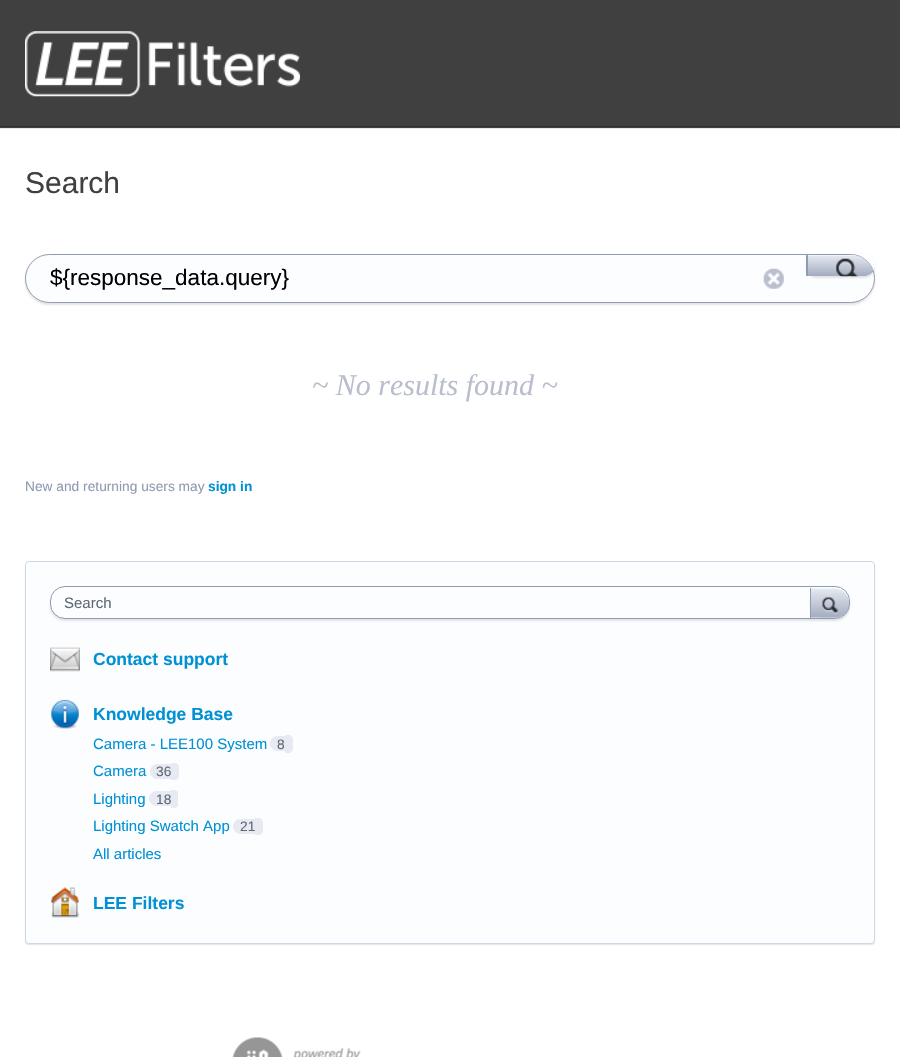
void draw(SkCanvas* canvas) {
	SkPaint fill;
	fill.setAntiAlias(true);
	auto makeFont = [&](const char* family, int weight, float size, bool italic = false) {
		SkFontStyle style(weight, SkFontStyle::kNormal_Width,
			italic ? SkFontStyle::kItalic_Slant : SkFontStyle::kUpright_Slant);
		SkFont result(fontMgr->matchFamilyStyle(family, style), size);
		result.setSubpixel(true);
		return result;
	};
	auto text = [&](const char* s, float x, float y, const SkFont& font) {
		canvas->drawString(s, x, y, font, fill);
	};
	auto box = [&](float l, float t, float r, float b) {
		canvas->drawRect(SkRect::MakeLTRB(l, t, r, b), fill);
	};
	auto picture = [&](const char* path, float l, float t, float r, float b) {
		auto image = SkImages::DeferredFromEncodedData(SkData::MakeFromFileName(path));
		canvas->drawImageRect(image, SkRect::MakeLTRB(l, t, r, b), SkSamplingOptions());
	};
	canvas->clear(0xFFFFFFFF);
	fill.setColor(0xFF404040);
	box(0, 0, 900, 128);
	fill.setColor(0xFF303030);
	box(0, 126, 900, 127);
	picture("image0.png", 25, 31, 300, 97);
	fill.setColor(0xFFE3E8F2);
	box(0, 128, 900, 129);
	fill.setColor(0x1A000000);
	fill.setMaskFilter(SkMaskFilter::MakeBlur(kNormal_SkBlurStyle, 1));
	canvas->drawRoundRect(SkRect::MakeLTRB(25, 256, 875, 305), 24.5f, 24.5f, fill);
	fill.setMaskFilter(nullptr);
	fill.setColor(0xFFFCFDFF);
	canvas->drawRoundRect(SkRect::MakeLTRB(25.5f, 254.5f, 874.5f, 302.5f), 24, 24, fill);
	fill.setStyle(SkPaint::kStroke_Style);
	fill.setStrokeWidth(1);
	fill.setColor(0xFF8F9BB3);
	canvas->drawRoundRect(SkRect::MakeLTRB(25.5f, 254.5f, 874.5f, 302.5f), 24, 24, fill);
	picture("image1.png", 763, 268, 784, 289);
	canvas->save();
	canvas->clipPath(SkPathBuilder(SkPathFillType::kEvenOdd).moveTo(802, 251).lineTo(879, 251).lineTo(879, 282).lineTo(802, 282).close().moveTo(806, 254).lineTo(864, 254).cubicTo(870, 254, 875, 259, 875, 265).cubicTo(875, 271, 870, 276, 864, 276).lineTo(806, 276).close().detach(), true);
	fill.setStyle(SkPaint::kFill_Style);
	fill.setColor(0x1A000000);
	fill.setMaskFilter(SkMaskFilter::MakeBlur(kNormal_SkBlurStyle, 1));
	canvas->drawRoundRect(SkRect::MakeLTRB(806, 255, 875, 278), 11.5f, 11.5f, fill);
	fill.setMaskFilter(nullptr);
	canvas->restore();
	{
		const SkColor colors[] = {0xFFE6EAF2, 0xFFA2ACBF};
		const float stops[] = {0, 1};
		const SkPoint ends[] = {{808, 255}, {808, 276}};
		fill.setShader(SkGradientShader::MakeLinear(ends, colors, stops, 2, SkTileMode::kClamp));
		fill.setAlpha(255);
	}
	canvas->drawPath(SkPathBuilder().moveTo(808, 255).lineTo(808, 276).lineTo(864, 276).cubicTo(867, 276, 871, 274, 873, 270).cubicTo(869, 261, 861, 255, 851, 255).close().detach(), fill);
	fill.setShader(nullptr);
	fill.setColor(0x80FFFFFF);
	canvas->drawPath(SkPathBuilder().moveTo(808, 256).lineTo(858, 256).lineTo(851, 255).lineTo(808, 255).lineTo(808, 276).close().detach(), fill);
	fill.setColor(0xFF8F9BB3);
	canvas->drawPath(SkPathBuilder().moveTo(873, 271.5f).cubicTo(871, 274, 867.5f, 276, 864, 276).cubicTo(867.5f, 276, 871, 273.5f, 872.5f, 270.5f).close().detach(), fill);
	canvas->drawPath(SkPathBuilder().moveTo(807.5f, 255).lineTo(808, 255.5f).lineTo(808, 276).lineTo(806, 276).lineTo(806, 255).close().detach(), fill);
	picture("image2.png", 836, 258, 859, 277);
	fill.setColor(0x1A000000);
	fill.setMaskFilter(SkMaskFilter::MakeBlur(kNormal_SkBlurStyle, 0.5f));
	canvas->drawRoundRect(SkRect::MakeLTRB(25, 563, 875, 945), 4, 4, fill);
	fill.setMaskFilter(nullptr);
	fill.setColor(0xFFFCFDFF);
	canvas->drawRoundRect(SkRect::MakeLTRB(25.5f, 561.5f, 874.5f, 943.5f), 3.5f, 3.5f, fill);
	fill.setStyle(SkPaint::kStroke_Style);
	fill.setColor(0xFFCFD7E6);
	canvas->drawRoundRect(SkRect::MakeLTRB(25.5f, 561.5f, 874.5f, 943.5f), 3.5f, 3.5f, fill);
	fill.setStyle(SkPaint::kFill_Style);
	fill.setColor(0x1A000000);
	fill.setMaskFilter(SkMaskFilter::MakeBlur(kNormal_SkBlurStyle, 1));
	canvas->drawRoundRect(SkRect::MakeLTRB(50, 589, 850, 621), 15, 15, fill);
	fill.setMaskFilter(nullptr);
	fill.setColor(0xFFFCFDFF);
	canvas->drawRoundRect(SkRect::MakeLTRB(50.5f, 586.5f, 849.5f, 618.5f), 14.5f, 14.5f, fill);
	fill.setStyle(SkPaint::kStroke_Style);
	fill.setColor(0xFF8F9BB3);
	canvas->drawRoundRect(SkRect::MakeLTRB(50.5f, 586.5f, 849.5f, 618.5f), 14.5f, 14.5f, fill);
	canvas->save();
	canvas->clipPath(SkPathBuilder().moveTo(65, 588).lineTo(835, 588).cubicTo(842.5f, 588, 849, 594.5f, 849, 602).lineTo(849, 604).cubicTo(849, 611.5f, 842.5f, 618, 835, 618).lineTo(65, 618).cubicTo(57.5f, 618, 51, 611.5f, 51, 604).lineTo(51, 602).cubicTo(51, 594.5f, 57.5f, 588, 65, 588).close().detach(), true);
	fill.setStyle(SkPaint::kFill_Style);
	fill.setColor(0x1A000000);
	fill.setMaskFilter(SkMaskFilter::MakeBlur(kNormal_SkBlurStyle, 1));
	canvas->drawRoundRect(SkRect::MakeLTRB(810, 588, 850, 619), 15, 15, fill);
	fill.setMaskFilter(nullptr);
	canvas->restore();
	{
		const SkColor colors[] = {0xFFE6EAF2, 0xFFA2ACBF};
		const float stops[] = {0, 1};
		const SkPoint ends[] = {{811, 588}, {811, 618}};
		fill.setShader(SkGradientShader::MakeLinear(ends, colors, stops, 2, SkTileMode::kClamp));
		fill.setAlpha(255);
	}
	canvas->drawPath(SkPathBuilder().moveTo(849, 602.5f).lineTo(849, 602).cubicTo(849, 594.5f, 842.5f, 588, 835, 588).lineTo(811, 588).lineTo(811, 617.5f).lineTo(835, 617.5f).cubicTo(842.5f, 617.5f, 849, 611, 849, 602.5f).close().detach(), fill);
	fill.setShader(nullptr);
	fill.setColor(0x80FFFFFF);
	canvas->drawPath(SkPathBuilder().moveTo(811, 589).lineTo(811, 588).lineTo(837, 588).cubicTo(842.5f, 589, 847.5f, 593, 848.5f, 598.5f).cubicTo(847, 593, 841.5f, 589, 835, 589).close().detach(), fill);
	fill.setColor(0xFF8F9BB3);
	canvas->drawPath(SkPathBuilder().moveTo(849, 602).cubicTo(849, 604.5f, 849, 607, 848, 609).cubicTo(847, 612, 842, 617.5f, 838.5f, 617.5f).cubicTo(844.5f, 615.5f, 849, 609.5f, 849, 602).close().detach(), fill);
	box(810, 588, 811, 618);
	picture("image3.png", 822, 597, 838, 614);
	picture("image4.png", 50, 647, 80, 672);
	picture("image5.png", 51, 699, 79, 729);
	fill.setColor(0xFFE7EAF2);
	canvas->drawPath(SkPathBuilder().moveTo(277.5f, 736).lineTo(285, 736).lineTo(285, 751).lineTo(277.5f, 751).cubicTo(273.5f, 751, 270, 747.5f, 270, 743.5f).cubicTo(270, 739.5f, 273.5f, 736, 277.5f, 736).close().detach(), fill);
	canvas->drawPath(SkPathBuilder().moveTo(285, 735).lineTo(289, 735).cubicTo(291, 735, 293, 737, 293, 739).lineTo(293, 749).cubicTo(293, 751, 291, 753, 289, 753).lineTo(285, 753).close().detach(), fill);
	canvas->drawPath(SkPathBuilder().moveTo(157.5f, 764).lineTo(171, 764).lineTo(171, 779).lineTo(157.5f, 779).cubicTo(153.5f, 779, 150, 775.5f, 150, 771.5f).cubicTo(150, 767.5f, 153.5f, 764, 157.5f, 764).close().detach(), fill);
	canvas->drawPath(SkPathBuilder().moveTo(171, 763).lineTo(175, 763).cubicTo(177, 763, 179, 765, 179, 767).lineTo(179, 776).cubicTo(179, 778, 177, 780, 175, 780).lineTo(171, 780).close().detach(), fill);
	canvas->drawPath(SkPathBuilder().moveTo(156.5f, 791).lineTo(171, 791).lineTo(171, 806).lineTo(156.5f, 806).cubicTo(152.5f, 806, 149, 802.5f, 149, 798.5f).cubicTo(149, 794.5f, 152.5f, 791, 156.5f, 791).close().detach(), fill);
	canvas->drawPath(SkPathBuilder().moveTo(171, 790).lineTo(174.5f, 790).cubicTo(176.5f, 790, 178, 791.5f, 178, 793.5f).lineTo(178, 804.5f).cubicTo(178, 806.5f, 176.5f, 808, 174.5f, 808).lineTo(171, 808).close().detach(), fill);
	canvas->drawPath(SkPathBuilder().moveTo(240.5f, 819).lineTo(255, 819).lineTo(255, 834).lineTo(240.5f, 834).cubicTo(236.5f, 834, 233, 830.5f, 233, 826.5f).cubicTo(233, 822.5f, 236.5f, 819, 240.5f, 819).close().detach(), fill);
	canvas->drawPath(SkPathBuilder().moveTo(255, 818).lineTo(259, 818).cubicTo(261, 818, 263, 820, 263, 822).lineTo(263, 831).cubicTo(263, 833, 261, 835, 259, 835).lineTo(255, 835).close().detach(), fill);
	picture("image6.png", 51, 887, 80, 918);
	picture("image7.png", 232, 1037, 361, 1057);
	auto font1 = makeFont("Liberation Sans", 400, 30);
	fill.setColor(0xFF404040);
	text("Search", 25, 193, font1);
	auto font2 = makeFont("Liberation Sans", 400, 22.5f);
	fill.setColor(0xFF000000);
	text("${response_data.query}", 50, 285, font2);
	auto font3 = makeFont("Liberation Serif", 400, 30, true);
	fill.setColor(0xFFB8BECC);
	text("~ No results found ~", 312, 395, font3);
	auto font4 = makeFont("Liberation Sans", 400, 13.75f);
	fill.setColor(0xFF8F9BB3);
	text("New and returning users may", 25, 491, font4);
	auto font5 = makeFont("Liberation Sans", 700, 13.75f);
	fill.setColor(0xFF0091D4);
	text("sign in", 208, 491, font5);
	auto font6 = makeFont("Liberation Sans", 400, 15);
	fill.setColor(0xFF616973);
	text("Search", 64, 608, font6);
	auto font7 = makeFont("Liberation Sans", 700, 17.5f);
	fill.setColor(0xFF0091D4);
	text("Contact support", 93, 665, font7);
	text("Knowledge Base", 93, 720, font7);
	text("Camera - LEE100 System", 93, 749, font6);
	fill.setColor(0xFF616973);
	text("8", 277, 749, font4);
	fill.setColor(0xFF0091D4);
	text("Camera", 93, 776, font6);
	fill.setColor(0xFF616973);
	text("36", 156, 776, font4);
	fill.setColor(0xFF0091D4);
	text("Lighting", 93, 804, font6);
	fill.setColor(0xFF616973);
	text("18", 156, 804, font4);
	fill.setColor(0xFF0091D4);
	text("Lighting Swatch App", 93, 831, font6);
	fill.setColor(0xFF616973);
	text("21", 240, 831, font4);
	fill.setColor(0xFF0091D4);
	text("All articles", 93, 859, font6);
	text("LEE Filters", 93, 909, font7);
}
